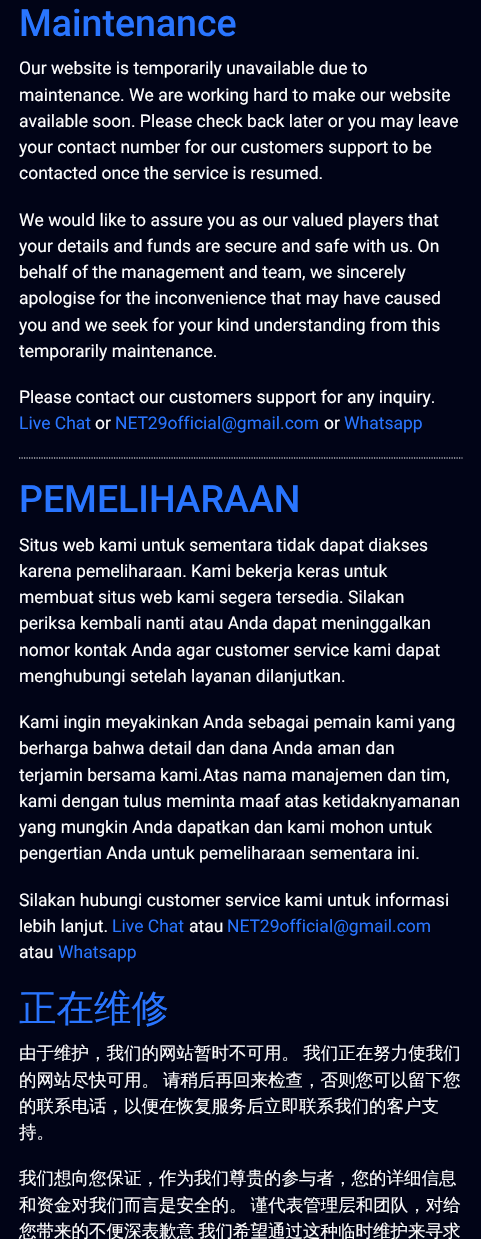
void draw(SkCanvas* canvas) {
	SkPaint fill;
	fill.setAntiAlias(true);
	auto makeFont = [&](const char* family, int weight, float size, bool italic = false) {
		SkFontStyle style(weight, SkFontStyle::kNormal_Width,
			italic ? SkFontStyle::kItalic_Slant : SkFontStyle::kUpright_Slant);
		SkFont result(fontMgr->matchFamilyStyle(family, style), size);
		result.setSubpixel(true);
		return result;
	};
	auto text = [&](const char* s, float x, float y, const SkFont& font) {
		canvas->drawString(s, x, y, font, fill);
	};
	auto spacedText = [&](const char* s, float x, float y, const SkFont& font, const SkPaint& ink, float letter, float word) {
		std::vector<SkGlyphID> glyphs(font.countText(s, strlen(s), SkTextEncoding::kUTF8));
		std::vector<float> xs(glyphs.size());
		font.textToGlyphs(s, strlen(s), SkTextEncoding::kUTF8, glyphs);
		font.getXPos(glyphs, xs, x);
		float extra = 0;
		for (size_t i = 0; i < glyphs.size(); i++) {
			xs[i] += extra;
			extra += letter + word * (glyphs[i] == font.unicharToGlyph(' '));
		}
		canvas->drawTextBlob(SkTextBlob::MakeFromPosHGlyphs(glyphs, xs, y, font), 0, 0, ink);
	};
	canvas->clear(0xFF010417);
	fill.setStyle(SkPaint::kStroke_Style);
	fill.setStrokeWidth(1.2f);
	fill.setColor(0xFFFFFFFF);
	fill.setPathEffect(SkDashPathEffect::Make({{1.25f, 1.25f}}, 0));
	canvas->drawPath(SkPathBuilder().moveTo(19, 458).lineTo(462.5f, 458).detach(), fill);
	fill.setPathEffect(nullptr);
	auto font1 = makeFont("Roboto", 500, 37.5f);
	fill.setStyle(SkPaint::kFill_Style);
	fill.setColor(0xFF2975FF);
	text("Maintenance", 19, 36, font1);
	auto font2 = makeFont("Roboto", 400, 17.5f);
	fill.setColor(0xFFFFFFFF);
	text("Our website is temporarily unavailable due to", 19, 74, font2);
	text("maintenance. We are working hard to make our website", 19, 101, font2);
	text("available soon. Please check back later or you may leave", 19, 127, font2);
	text("your contact number for our customers support to be", 19, 153, font2);
	text("contacted once the service is resumed.", 19, 179, font2);
	text("We would like to assure you as our valued players that", 19, 226, font2);
	text("your details and funds are secure and safe with us. On", 19, 252, font2);
	text("behalf of the management and team, we sincerely", 19, 278, font2);
	text("apologise for the inconvenience that may have caused", 19, 304, font2);
	text("you and we seek for your kind understanding from this", 19, 331, font2);
	text("temporarily maintenance.", 19, 357, font2);
	text("Please contact our customers support for any inquiry.", 19, 403, font2);
	fill.setColor(0xFF2975FF);
	text("Live Chat", 19, 429, font2);
	fill.setColor(0xFFFFFFFF);
	text("or", 95, 429, font2);
	fill.setColor(0xFF2975FF);
	text("NET29official@gmail.com", 115, 429, font2);
	fill.setColor(0xFFFFFFFF);
	text("or", 324, 429, font2);
	fill.setColor(0xFF2975FF);
	text("Whatsapp", 344, 429, font2);
	text("PEMELIHARAAN", 19, 512, font1);
	fill.setColor(0xFFFFFFFF);
	text("Situs web kami untuk sementara tidak dapat diakses", 19, 551, font2);
	text("karena pemeliharaan. Kami bekerja keras untuk", 19, 577, font2);
	text("membuat situs web kami segera tersedia. Silakan", 19, 603, font2);
	text("periksa kembali nanti atau Anda dapat meninggalkan", 19, 629, font2);
	text("nomor kontak Anda agar customer service kami dapat", 19, 656, font2);
	text("menghubungi setelah layanan dilanjutkan.", 19, 682, font2);
	text("Kami ingin meyakinkan Anda sebagai pemain kami yang", 19, 728, font2);
	text("berharga bahwa detail dan dana Anda aman dan", 19, 754, font2);
	text("terjamin bersama kami.Atas nama manajemen dan tim,", 19, 781, font2);
	text("kami dengan tulus meminta maaf atas ketidaknyamanan", 19, 807, font2);
	text("yang mungkin Anda dapatkan dan kami mohon untuk", 19, 833, font2);
	text("pengertian Anda untuk pemeliharaan sementara ini.", 19, 859, font2);
	text("Silakan hubungi customer service kami untuk informasi", 19, 906, font2);
	text("lebih lanjut.", 19, 932, font2);
	fill.setColor(0xFF2975FF);
	text("Live Chat", 112, 932, font2);
	fill.setColor(0xFFFFFFFF);
	text("atau", 189, 932, font2);
	fill.setColor(0xFF2975FF);
	text("NET29official@gmail.com", 227, 932, font2);
	fill.setColor(0xFFFFFFFF);
	text("atau", 19, 958, font2);
	fill.setColor(0xFF2975FF);
	text("Whatsapp", 58, 958, font2);
	auto font3 = makeFont("WenQuanYi Zen Hei", 500, 37.5f);
	text("正在维修", 19, 1021, font3);
	auto font4 = makeFont("WenQuanYi Zen Hei", 500, 17.5f);
	fill.setColor(0xFFFFFFFF);
	spacedText("由于维护，我们的网站暂时不可用。 我们正在努力使我们", 19, 1059, font4, fill, 0, -1);
	text("的网站尽快可用。", 19, 1086, font4);
	text("请稍后再回来检查，否则您可以留下您", 163, 1086, font4);
	text("的联系电话，以便在恢复服务后立即联系我们的客户支", 19, 1112, font4);
	text("持。", 19, 1138, font4);
	text("我们想向您保证，作为我们尊贵的参与者，您的详细信息", 19, 1184, font4);
	spacedText("和资金对我们而言是安全的。 谨代表管理层和团队，对给", 19, 1211, font4, fill, 0, -1);
	text("您带来的不便深表歉意", 19, 1237, font4);
	text("我们希望通过这种临时维护来寻求", 198, 1237, font4);
}
